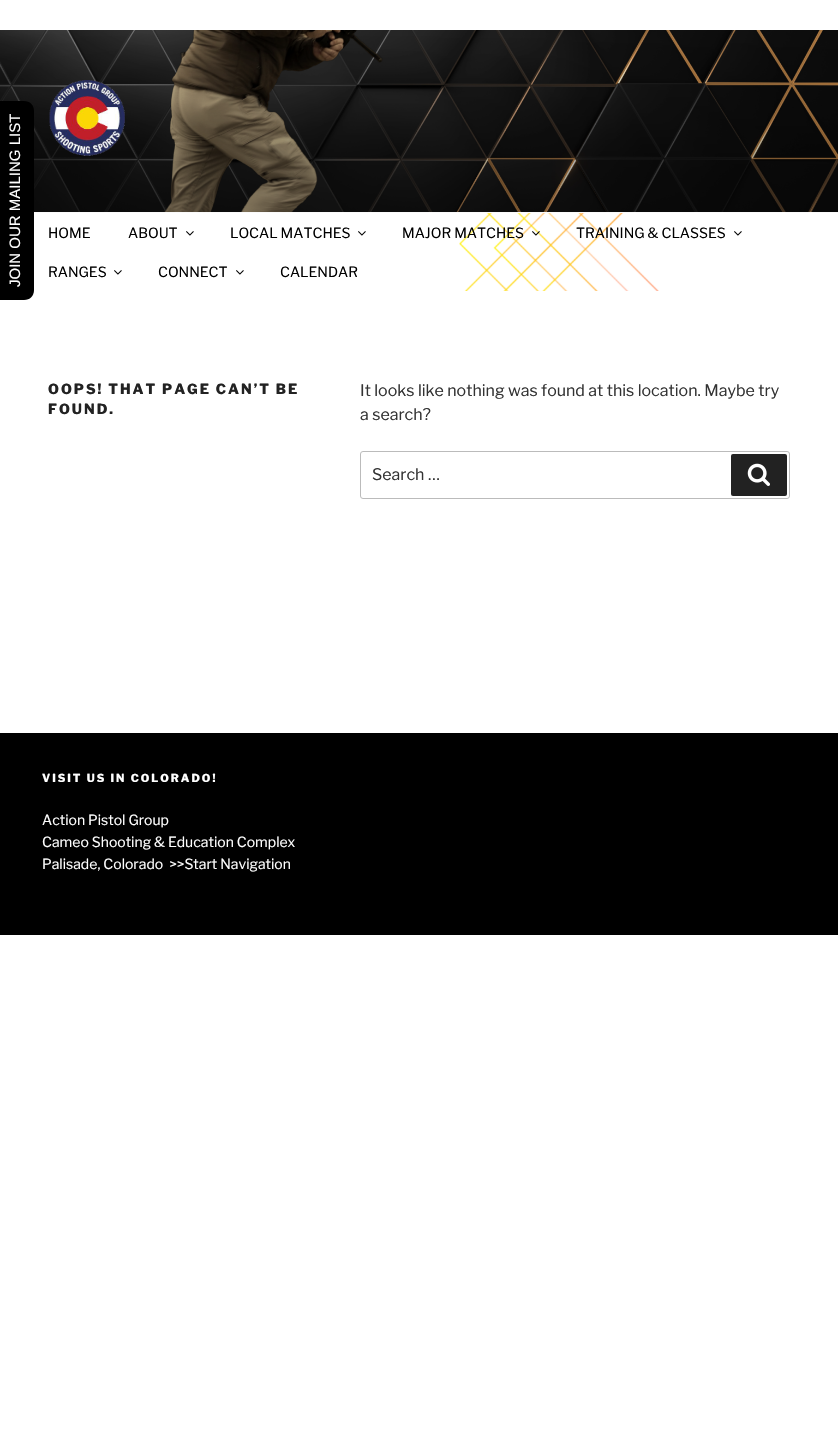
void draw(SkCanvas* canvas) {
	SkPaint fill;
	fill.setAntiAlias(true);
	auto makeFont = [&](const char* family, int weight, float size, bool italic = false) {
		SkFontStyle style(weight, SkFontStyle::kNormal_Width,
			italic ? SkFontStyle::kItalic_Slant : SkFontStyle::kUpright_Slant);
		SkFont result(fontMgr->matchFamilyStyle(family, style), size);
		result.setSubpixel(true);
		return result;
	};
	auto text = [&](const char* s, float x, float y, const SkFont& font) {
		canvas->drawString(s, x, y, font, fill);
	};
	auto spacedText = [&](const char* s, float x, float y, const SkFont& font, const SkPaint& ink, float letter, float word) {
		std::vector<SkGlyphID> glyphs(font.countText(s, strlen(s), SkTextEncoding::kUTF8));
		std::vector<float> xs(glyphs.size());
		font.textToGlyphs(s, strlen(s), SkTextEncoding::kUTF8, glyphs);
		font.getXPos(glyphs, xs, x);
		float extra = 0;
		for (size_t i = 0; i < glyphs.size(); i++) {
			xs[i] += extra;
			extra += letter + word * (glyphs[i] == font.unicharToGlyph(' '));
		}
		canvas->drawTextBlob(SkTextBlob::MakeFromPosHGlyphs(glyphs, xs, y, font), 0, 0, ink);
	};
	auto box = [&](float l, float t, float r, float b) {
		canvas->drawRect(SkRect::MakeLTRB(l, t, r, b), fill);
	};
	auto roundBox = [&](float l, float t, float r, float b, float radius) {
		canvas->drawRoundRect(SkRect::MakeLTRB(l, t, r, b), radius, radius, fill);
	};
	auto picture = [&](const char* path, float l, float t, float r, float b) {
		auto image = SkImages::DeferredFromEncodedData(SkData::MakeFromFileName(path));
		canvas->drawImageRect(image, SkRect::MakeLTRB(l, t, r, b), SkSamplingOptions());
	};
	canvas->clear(0xFFFFFFFF);
	picture("image0.png", 0, 30, 838, 212);
	fill.setColor(0xFF000000);
	canvas->drawPath(SkPathBuilder().moveTo(-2, 300).lineTo(-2, 101).lineTo(24, 101).cubicTo(30, 101, 34, 105, 34, 111).lineTo(34, 290).cubicTo(34, 296, 30, 300, 24, 300).close().detach(), fill);
	fill.setColor(0xFFFAFAFA);
	box(34, 212, 838, 213);
	picture("image1.png", 49, 80, 125, 156);
	picture("image2.png", 459, 213, 659, 291);
	picture("image3.png", 186, 231, 194, 236);
	picture("image3.png", 358, 231, 366, 236);
	picture("image4.png", 532, 231, 540, 236);
	picture("image3.png", 734, 231, 742, 236);
	picture("image3.png", 114, 270, 122, 275);
	picture("image3.png", 236, 270, 244, 275);
	fill.setStyle(SkPaint::kStroke_Style);
	fill.setStrokeWidth(1);
	fill.setColor(0xFFBBBBBB);
	canvas->drawRoundRect(SkRect::MakeLTRB(360.5f, 451.5f, 789.5f, 498.5f), 2.5f, 2.5f, fill);
	fill.setStyle(SkPaint::kFill_Style);
	fill.setColor(0xFF222222);
	roundBox(731, 454, 787, 496, 2);
	picture("image5.png", 747, 463, 770, 486);
	fill.setColor(0xFF000000);
	box(0, 733, 838, 935);
	auto font1 = makeFont("Liberation Sans", 400, 15);
	fill.setColor(0xFFFFFFFF);
	canvas->save();
	canvas->rotate(-90, 20, 287);
	text("JOIN OUR MAILING LIST", 20, 287, font1);
	canvas->restore();
	auto font2 = makeFont("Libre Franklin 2", 100, 14);
	fill.setColor(0xFF000000);
	text("HOME", 48, 238, font2);
	text("ABOUT", 128, 238, font2);
	text("LOCAL MATCHES", 230, 238, font2);
	text("MAJOR MATCHES", 402, 238, font2);
	text("TRAINING & CLASSES", 576, 238, font2);
	text("RANGES", 48, 277, font2);
	text("CONNECT", 158, 277, font2);
	text("CALENDAR", 280, 277, font2);
	auto font3 = makeFont("Libre Franklin", 100, 14);
	fill.setColor(0xFF222222);
	spacedText("OOPS! THAT PAGE CAN’T BE", 48, 394, font3, fill, 2, 0);
	spacedText("FOUND.", 48, 414, font3, fill, 2, 0);
	auto font4 = makeFont("Libre Franklin 2", 100, 16);
	fill.setColor(0xFF333333);
	text("It looks like nothing was found at this location. Maybe try", 360, 396, font4);
	text("a search?", 360, 420, font4);
	text("Search …", 372, 480, font4);
	auto font5 = makeFont("Libre Franklin", 100, 11);
	fill.setColor(0xFFFFFFFF);
	spacedText("VISIT US IN COLORADO!", 42, 782, font5, fill, 2, 0);
	text("Action Pistol Group", 42, 825, font2);
	text("Cameo Shooting & Education Complex", 42, 847, font2);
	text("Palisade, Colorado  >>Start Navigation", 42, 869, font2);
}
